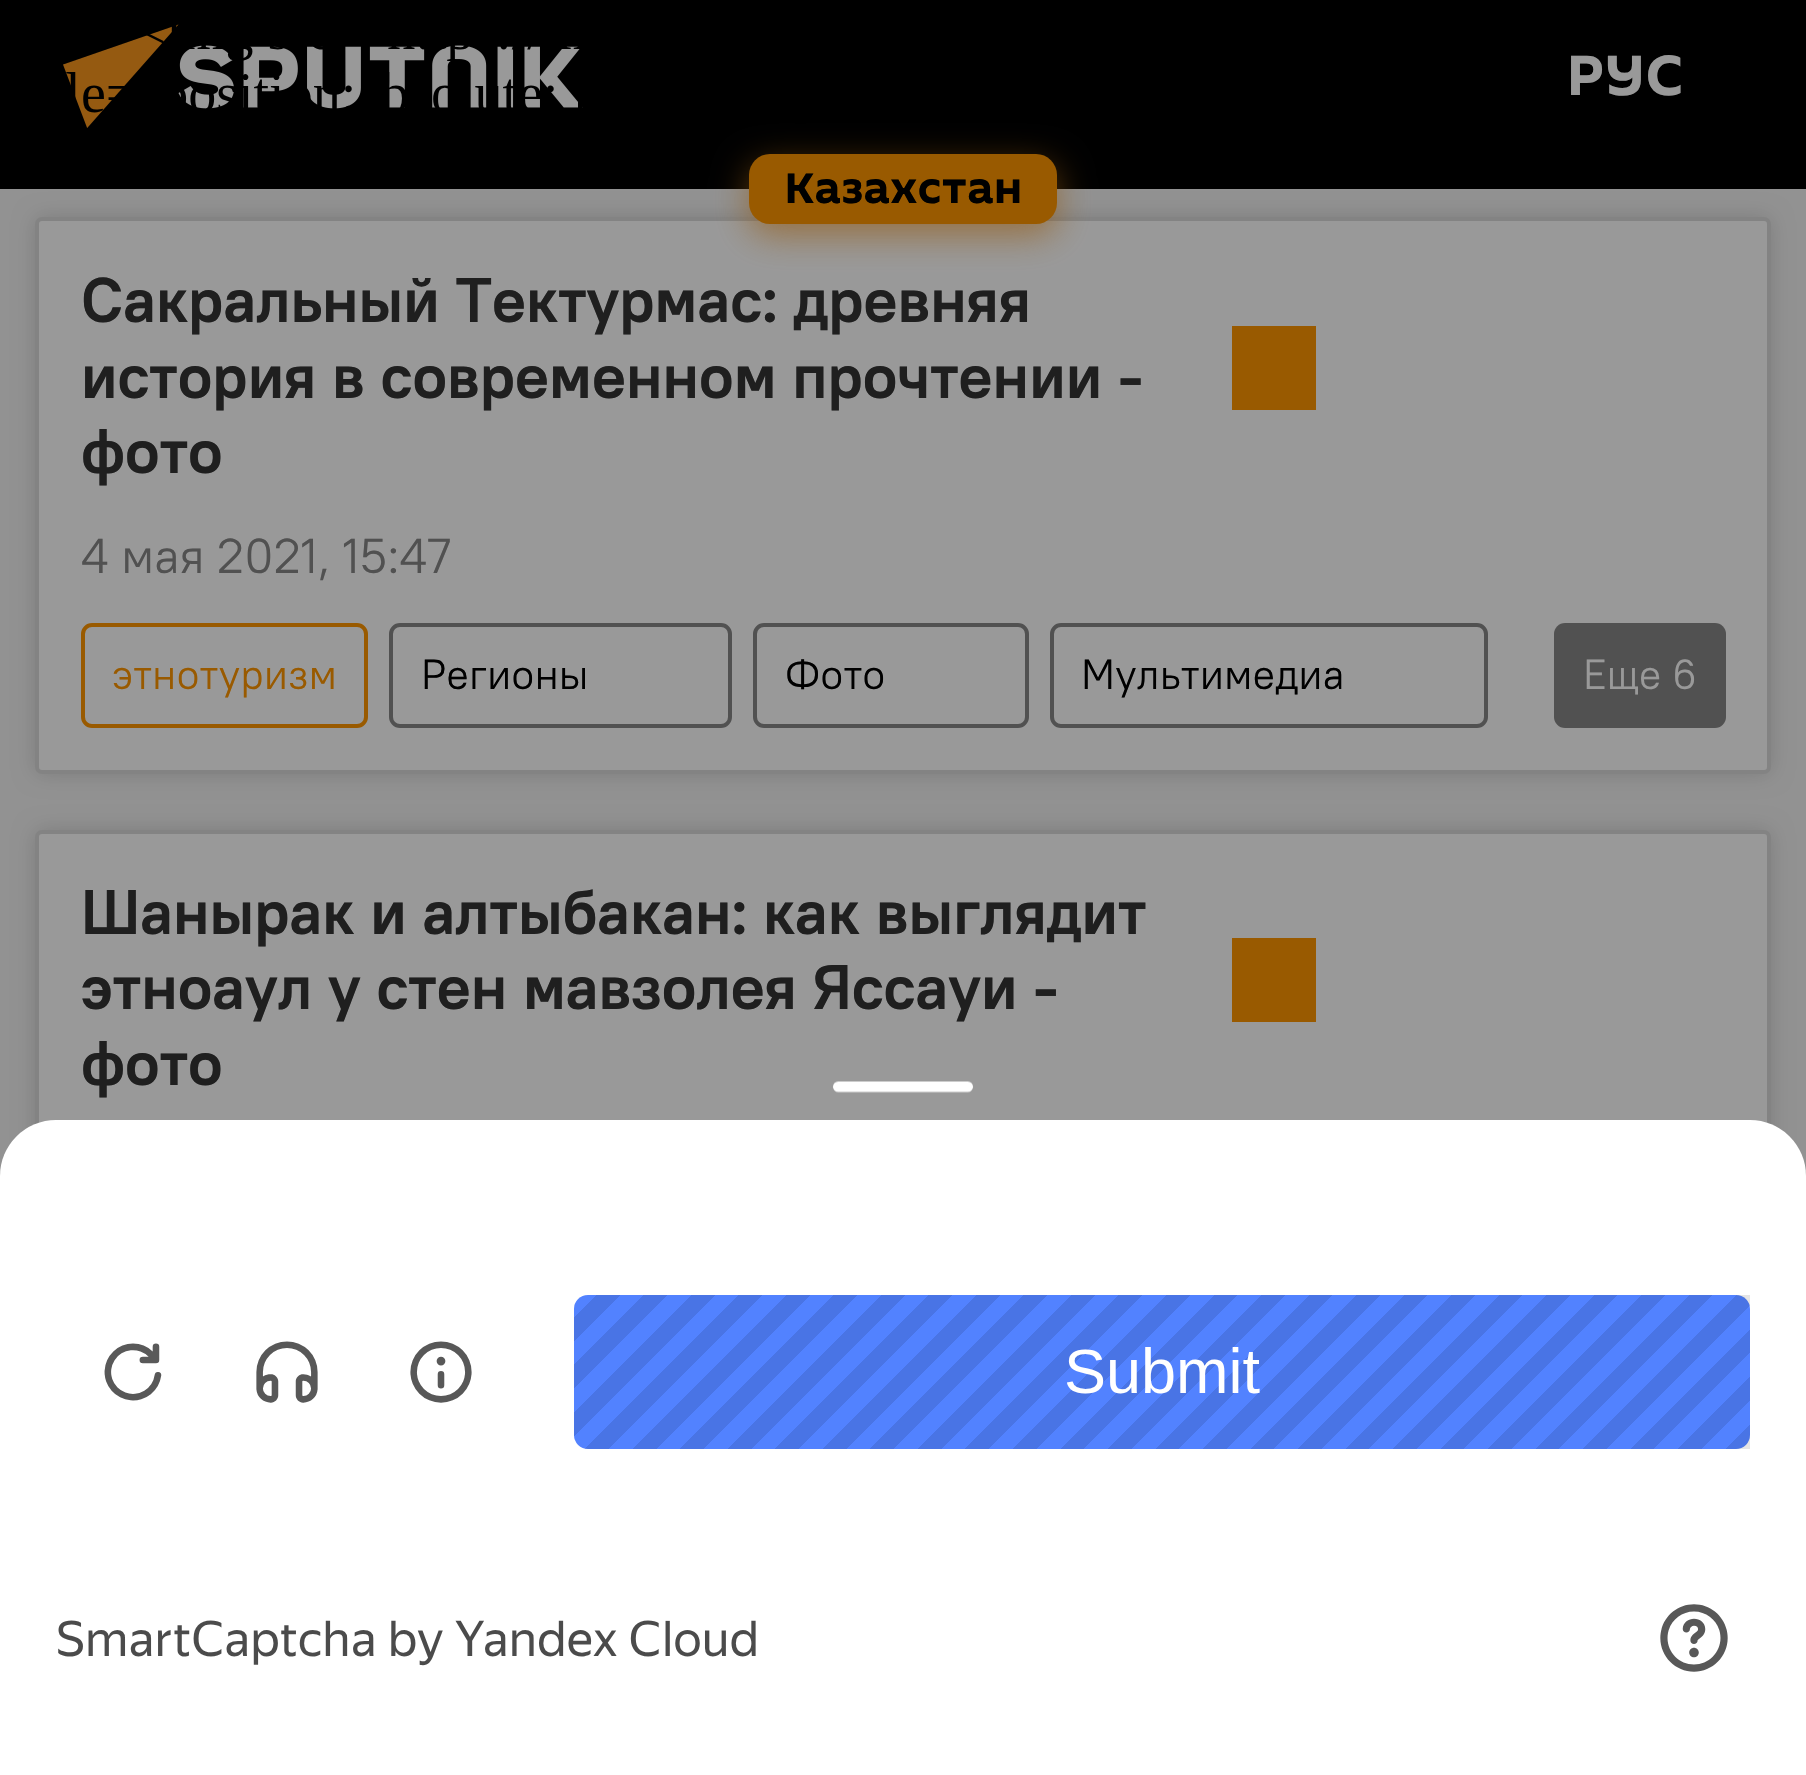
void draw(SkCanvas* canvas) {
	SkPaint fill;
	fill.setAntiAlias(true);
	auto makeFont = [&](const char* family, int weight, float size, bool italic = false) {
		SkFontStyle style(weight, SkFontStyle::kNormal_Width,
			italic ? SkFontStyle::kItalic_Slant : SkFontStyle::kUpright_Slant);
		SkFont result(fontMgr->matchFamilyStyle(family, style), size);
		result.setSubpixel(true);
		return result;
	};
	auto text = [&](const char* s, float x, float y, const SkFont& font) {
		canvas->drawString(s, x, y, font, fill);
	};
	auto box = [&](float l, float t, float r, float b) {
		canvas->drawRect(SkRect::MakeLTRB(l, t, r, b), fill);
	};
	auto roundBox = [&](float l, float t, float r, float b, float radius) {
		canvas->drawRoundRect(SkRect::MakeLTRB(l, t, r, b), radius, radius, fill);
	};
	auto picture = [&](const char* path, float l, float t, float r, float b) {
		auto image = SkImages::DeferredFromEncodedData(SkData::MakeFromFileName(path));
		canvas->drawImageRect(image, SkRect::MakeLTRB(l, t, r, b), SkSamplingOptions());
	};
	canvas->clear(0xFF929292);
	fill.setColor(0x26000000);
	fill.setMaskFilter(SkMaskFilter::MakeBlur(kNormal_SkBlurStyle, 10.5f));
	canvas->drawRoundRect(SkRect::MakeLTRB(35, 217, 1771, 774), 7, 7, fill);
	fill.setMaskFilter(nullptr);
	fill.setColor(0xFF000000);
	box(0, 0, 1806, 189);
	picture("image1.png", 63, 24, 583, 128);
	fill.setColor(0xFF999999);
	canvas->drawRoundRect(SkRect::MakeLTRB(37, 219, 1769, 772), 5, 5, fill);
	fill.setStyle(SkPaint::kStroke_Style);
	fill.setStrokeWidth(4);
	fill.setColor(0xFF838383);
	canvas->drawRoundRect(SkRect::MakeLTRB(37, 219, 1769, 772), 5, 5, fill);
	fill.setStyle(SkPaint::kFill_Style);
	fill.setColor(0xA8955A11);
	fill.setMaskFilter(SkMaskFilter::MakeBlur(kNormal_SkBlurStyle, 17.5f));
	canvas->drawRoundRect(SkRect::MakeLTRB(749, 165, 1057, 235), 21, 21, fill);
	fill.setMaskFilter(nullptr);
	fill.setColor(0xFF995A00);
	roundBox(749, 154, 1057, 224, 21);
	box(1232, 326, 1316, 410);
	fill.setStyle(SkPaint::kStroke_Style);
	canvas->drawRoundRect(SkRect::MakeLTRB(83, 625, 366, 726), 9, 9, fill);
	fill.setColor(0xFF515151);
	canvas->drawRoundRect(SkRect::MakeLTRB(391, 625, 730, 726), 9, 9, fill);
	canvas->drawRoundRect(SkRect::MakeLTRB(755, 625, 1027, 726), 9, 9, fill);
	canvas->drawRoundRect(SkRect::MakeLTRB(1052, 625, 1486, 726), 9, 9, fill);
	fill.setStyle(SkPaint::kFill_Style);
	roundBox(1554, 623, 1726, 728, 11);
	fill.setColor(0x26000000);
	fill.setMaskFilter(SkMaskFilter::MakeBlur(kNormal_SkBlurStyle, 10.5f));
	canvas->drawRoundRect(SkRect::MakeLTRB(35, 830, 1771, 1386), 7, 7, fill);
	fill.setMaskFilter(nullptr);
	fill.setColor(0xFF999999);
	canvas->drawRoundRect(SkRect::MakeLTRB(37, 832, 1769, 1384), 5, 5, fill);
	fill.setStyle(SkPaint::kStroke_Style);
	fill.setColor(0xFF838383);
	canvas->drawRoundRect(SkRect::MakeLTRB(37, 832, 1769, 1384), 5, 5, fill);
	fill.setStyle(SkPaint::kFill_Style);
	fill.setColor(0xFF995A00);
	box(1232, 938, 1316, 1022);
	auto font1 = makeFont("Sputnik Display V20", 700, 56);
	fill.setColor(0xFF999999);
	text("РУС", 1566, 95, font1);
	auto font2 = makeFont("Sputnik Display V20", 700, 42);
	fill.setColor(0xFF000000);
	text("Казахстан", 784, 203, font2);
	auto font3 = makeFont("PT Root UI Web", 700, 63);
	fill.setColor(0xFF1F1F1F);
	text("Сакральный Тектурмас: древняя", 81, 322, font3);
	text("история в современном прочтении -", 81, 398, font3);
	text("фото", 81, 473, font3);
	auto font4 = makeFont("PT Root UI Web", 400, 49);
	fill.setColor(0xFF515151);
	text("4 мая 2021, 15:47", 81, 573, font4);
	auto font5 = makeFont("PT Root UI Web", 400, 42);
	fill.setColor(0xFF995A00);
	text("этнотуризм", 112, 689, font5);
	fill.setColor(0xFF000000);
	text("Регионы", 421, 689, font5);
	text("Фото", 785, 689, font5);
	text("Мультимедиа", 1081, 689, font5);
	fill.setColor(0xFF999999);
	text("Еще 6", 1583, 689, font5);
	fill.setColor(0xFF1F1F1F);
	text("Шанырак и алтыбакан: как выглядит", 81, 934, font3);
	text("этноаул у стен мавзолея Яссауи -", 81, 1009, font3);
	text("фото", 81, 1085, font3);
	picture("image0.png", 0, 25, 1806, 1775);
}
